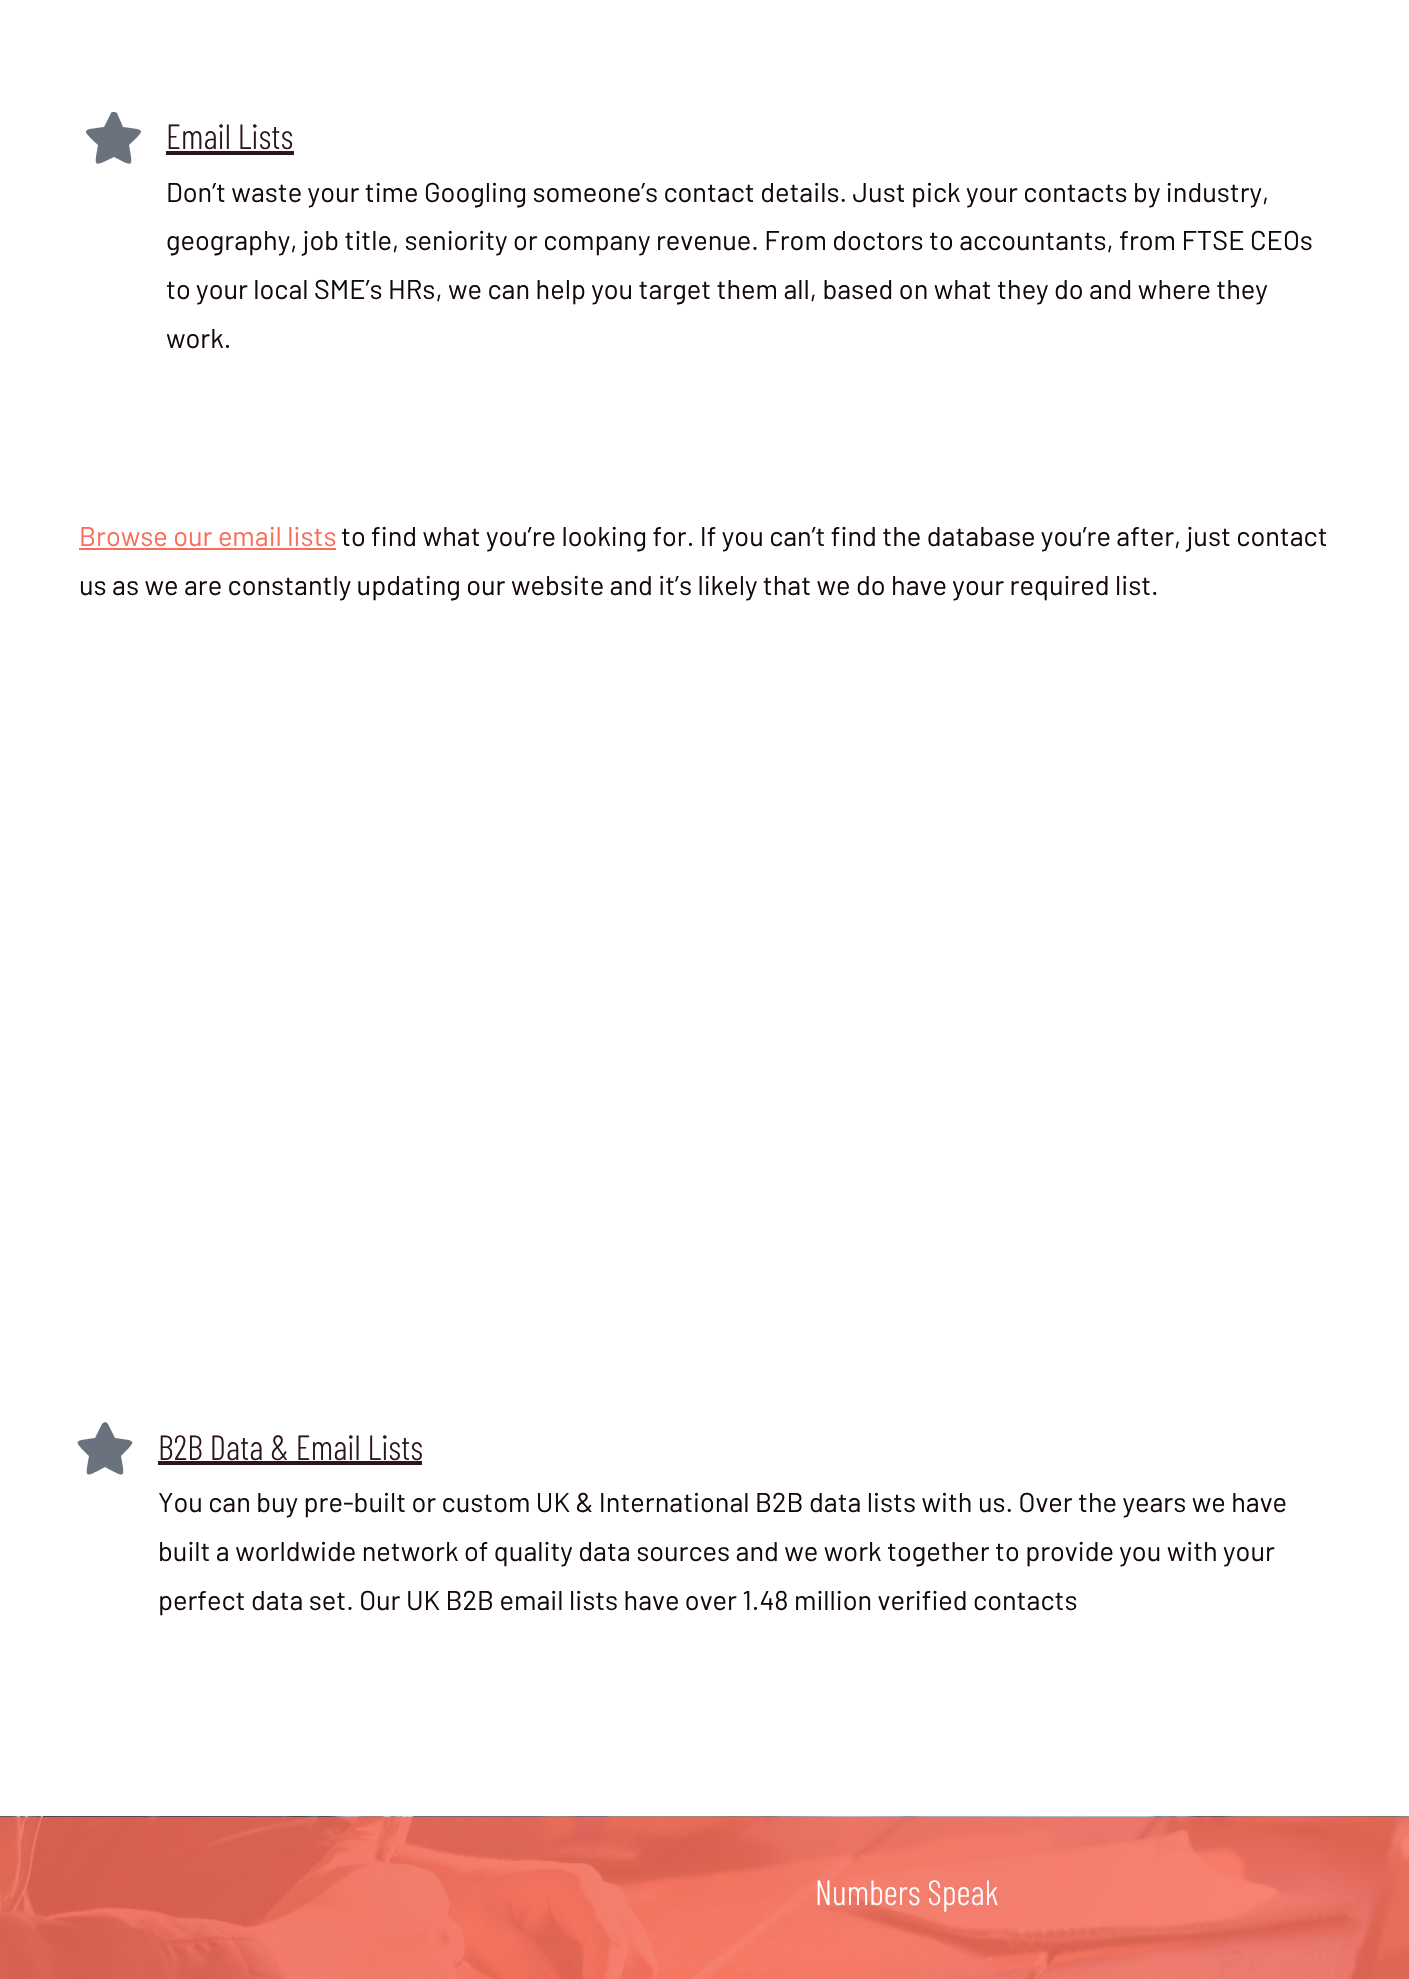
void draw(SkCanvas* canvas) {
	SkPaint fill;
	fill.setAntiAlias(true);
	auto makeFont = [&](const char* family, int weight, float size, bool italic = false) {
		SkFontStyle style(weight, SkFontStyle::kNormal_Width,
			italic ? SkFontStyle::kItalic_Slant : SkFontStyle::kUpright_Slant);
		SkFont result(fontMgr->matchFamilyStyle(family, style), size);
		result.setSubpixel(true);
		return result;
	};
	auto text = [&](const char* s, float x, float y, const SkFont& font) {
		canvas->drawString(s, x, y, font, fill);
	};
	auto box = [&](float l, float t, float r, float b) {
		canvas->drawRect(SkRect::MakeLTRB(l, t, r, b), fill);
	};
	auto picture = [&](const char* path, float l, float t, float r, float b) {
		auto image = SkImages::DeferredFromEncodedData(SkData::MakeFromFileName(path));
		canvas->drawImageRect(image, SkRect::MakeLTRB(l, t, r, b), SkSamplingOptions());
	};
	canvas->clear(0xFFFFFFFF);
	fill.setColor(0xFF69727D);
	canvas->drawPath(SkPathBuilder().moveTo(111, 113).cubicTo(111, 112, 112, 112, 114, 112).cubicTo(115, 112, 116, 112, 117, 113).lineTo(123, 127).cubicTo(146, 130, 146, 129, 129, 145).cubicTo(133, 168, 134, 167, 114, 157).cubicTo(93, 167, 94, 168, 98, 145).cubicTo(81, 129, 81, 130, 104, 127).close().detach(), fill);
	fill.setColor(0xFF2B161B);
	box(166, 151, 294, 155);
	fill.setColor(0xFFF96E5B);
	box(79, 548, 336, 550);
	fill.setColor(0xFF69727D);
	canvas->drawPath(SkPathBuilder().moveTo(102, 1424).cubicTo(103, 1423, 104, 1422, 105, 1422).cubicTo(106, 1422, 107, 1423, 108, 1424).lineTo(115, 1438).cubicTo(137, 1441, 137, 1440, 121, 1456).cubicTo(125, 1479, 126, 1478, 105, 1467).cubicTo(84, 1478, 85, 1479, 89, 1456).cubicTo(73, 1440, 73, 1441, 95, 1438).close().detach(), fill);
	fill.setColor(0xFF2B161B);
	box(158, 1461, 422, 1465);
	picture("image0.png", 0, 1816, 1409, 1979);
	auto font1 = makeFont("Barlow Condensed", 300, 35);
	text("Email Lists", 166, 149, font1);
	auto font2 = makeFont("Barlow", 400, 27.15f);
	fill.setColor(0xFF14080E);
	text("Don’t waste your time Googling someone’s contact details. Just pick your contacts by industry,", 166, 202, font2);
	text("geography, job title, seniority or company revenue. From doctors to accountants, from FTSE CEOs", 166, 250, font2);
	text("to your local SME’s HRs, we can help you target them all, based on what they do and where they", 166, 299, font2);
	text("work.", 166, 348, font2);
	fill.setColor(0xFFF96E5B);
	text("Browse our email lists", 79, 546, font2);
	fill.setColor(0xFF14080E);
	text("to find what you’re looking for. If you can’t find the database you’re after, just contact", 341, 546, font2);
	text("us as we are constantly updating our website and it’s likely that we do have your required list.", 79, 595, font2);
	fill.setColor(0xFF2B161B);
	text("B2B Data & Email Lists", 158, 1460, font1);
	fill.setColor(0xFF14080E);
	text("You can buy pre-built or custom UK & International B2B data lists with us. Over the years we have", 158, 1512, font2);
	text("built a worldwide network of quality data sources and we work together to provide you with your", 158, 1561, font2);
	text("perfect data set. Our UK B2B email lists have over 1.48 million verified contacts", 158, 1610, font2);
	fill.setColor(0xFFFFFFFF);
	text("Numbers Speak", 815, 1905, font1);
}
